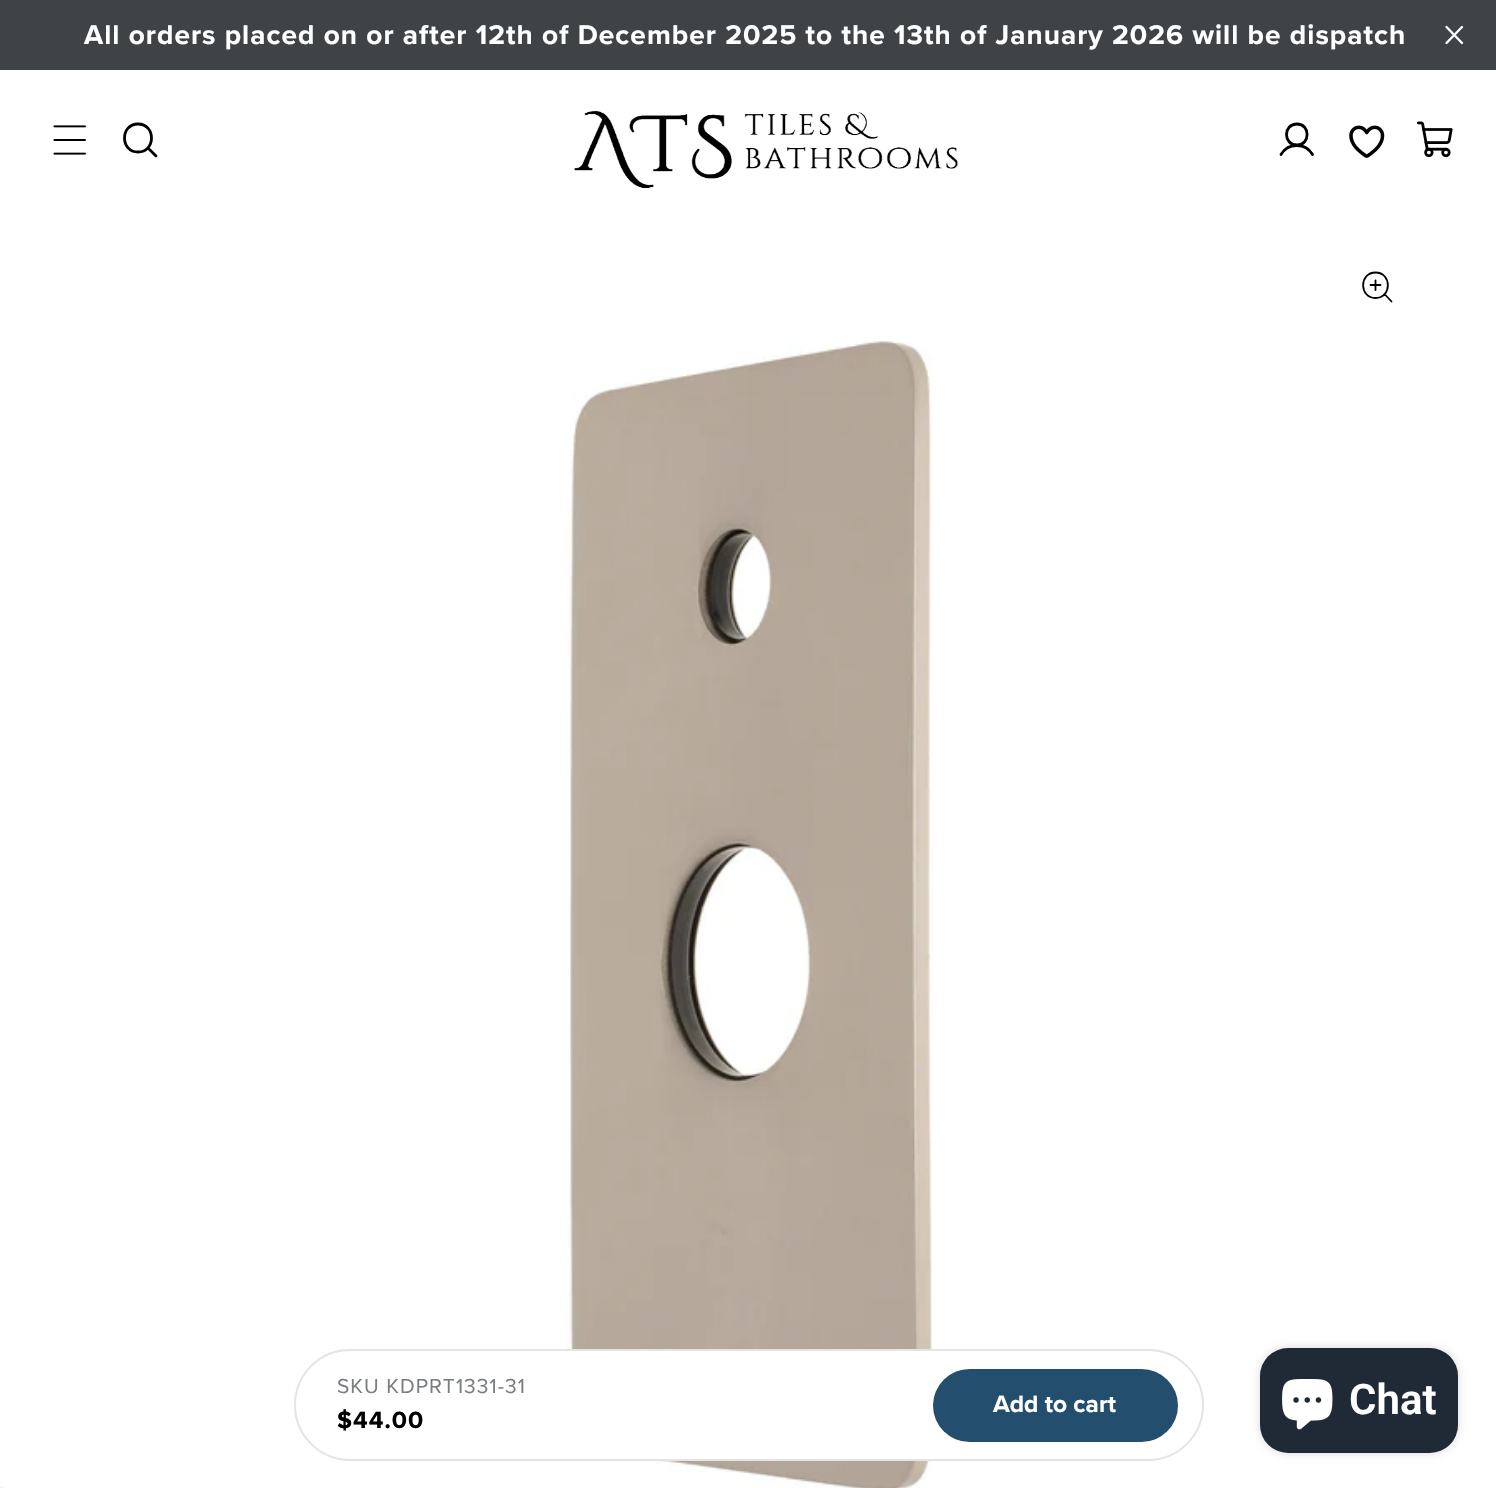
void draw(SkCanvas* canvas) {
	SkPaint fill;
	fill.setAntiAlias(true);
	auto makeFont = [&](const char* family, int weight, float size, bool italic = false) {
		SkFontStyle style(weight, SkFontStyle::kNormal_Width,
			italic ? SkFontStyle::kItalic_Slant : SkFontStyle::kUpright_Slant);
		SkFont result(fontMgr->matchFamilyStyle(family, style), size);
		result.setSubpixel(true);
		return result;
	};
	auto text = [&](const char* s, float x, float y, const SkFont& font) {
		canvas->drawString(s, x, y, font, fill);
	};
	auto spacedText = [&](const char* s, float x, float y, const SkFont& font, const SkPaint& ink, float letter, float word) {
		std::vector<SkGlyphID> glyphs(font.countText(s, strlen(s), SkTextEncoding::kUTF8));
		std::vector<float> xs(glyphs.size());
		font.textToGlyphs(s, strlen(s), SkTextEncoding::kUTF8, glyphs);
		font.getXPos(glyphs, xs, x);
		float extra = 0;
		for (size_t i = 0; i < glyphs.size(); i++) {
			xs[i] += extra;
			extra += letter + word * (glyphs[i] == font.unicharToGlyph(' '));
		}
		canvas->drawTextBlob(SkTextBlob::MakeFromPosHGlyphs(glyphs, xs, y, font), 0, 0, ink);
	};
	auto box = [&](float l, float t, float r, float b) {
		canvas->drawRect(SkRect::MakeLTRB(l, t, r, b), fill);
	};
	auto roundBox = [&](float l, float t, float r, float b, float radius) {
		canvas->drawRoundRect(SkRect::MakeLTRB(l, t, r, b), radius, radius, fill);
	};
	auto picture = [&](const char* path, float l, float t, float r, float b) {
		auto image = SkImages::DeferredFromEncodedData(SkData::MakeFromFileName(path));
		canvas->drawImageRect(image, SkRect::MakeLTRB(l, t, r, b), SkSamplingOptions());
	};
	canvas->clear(0xFFFFFFFF);
	fill.setColor(0xFF404346);
	box(0, 0, 1496, 70);
	fill.setStyle(SkPaint::kStroke_Style);
	fill.setStrokeWidth(2.4f);
	fill.setStrokeCap(SkPaint::kRound_Cap);
	fill.setStrokeJoin(SkPaint::kRound_Join);
	fill.setColor(0xFFFFFFFF);
	canvas->drawPath(SkPathBuilder().moveTo(1462, 27).lineTo(1446.5f, 43).moveTo(1462, 43).lineTo(1446.5f, 27).detach(), fill);
	picture("image0.png", 53, 125, 86, 155);
	fill.setStrokeWidth(2.8f);
	fill.setColor(0xFF000000);
	canvas->drawPath(SkPathBuilder().moveTo(138, 152).cubicTo(156, 152, 156, 124, 138, 124).cubicTo(120, 124, 120, 152, 138, 152).close().moveTo(148, 148).lineTo(156, 156).detach(), fill);
	picture("image1.png", 574, 110, 958, 189);
	fill.setStrokeCap(SkPaint::kButt_Cap);
	fill.setStrokeJoin(SkPaint::kMiter_Join);
	canvas->drawPath(SkPathBuilder().moveTo(1297, 145).cubicTo(1310.5f, 145, 1310.5f, 124, 1297, 124).cubicTo(1283, 124, 1283, 145, 1297, 145).close().detach(), fill);
	fill.setStrokeCap(SkPaint::kRound_Cap);
	fill.setStrokeJoin(SkPaint::kRound_Join);
	canvas->drawPath(SkPathBuilder().moveTo(1281, 154.5f).cubicTo(1288, 142.5f, 1305.5f, 142.5f, 1312.5f, 154.5f).detach(), fill);
	picture("image2.png", 1349, 125, 1385, 158);
	picture("image3.png", 1417, 121, 1453, 158);
	fill.setStrokeWidth(1.8f);
	canvas->drawPath(SkPathBuilder().moveTo(1370.5f, 285).lineTo(1380.5f, 285).moveTo(1375.5f, 280.5f).lineTo(1375.5f, 290).moveTo(1375.5f, 298).cubicTo(1392, 298, 1392, 272.5f, 1375.5f, 272.5f).cubicTo(1359, 272.5f, 1359, 298, 1375.5f, 298).close().moveTo(1384.5f, 294).lineTo(1391.5f, 301.5f).detach(), fill);
	picture("image4.png", 567, 341, 933, 1488);
	fill.setStyle(SkPaint::kFill_Style);
	fill.setColor(0xFFFFFFFF);
	canvas->drawRoundRect(SkRect::MakeLTRB(295, 1350, 1203, 1460), 55, 55, fill);
	fill.setStyle(SkPaint::kStroke_Style);
	fill.setStrokeWidth(2);
	fill.setStrokeCap(SkPaint::kButt_Cap);
	fill.setStrokeJoin(SkPaint::kMiter_Join);
	fill.setColor(0xFFE4E4E4);
	canvas->drawRoundRect(SkRect::MakeLTRB(295, 1350, 1203, 1460), 55, 55, fill);
	fill.setStyle(SkPaint::kFill_Style);
	fill.setColor(0xFF234E6D);
	roundBox(933, 1369, 1178, 1442, 36.5f);
	fill.setColor(0x26000000);
	fill.setMaskFilter(SkMaskFilter::MakeBlur(kNormal_SkBlurStyle, 4.5f));
	canvas->drawRoundRect(SkRect::MakeLTRB(1260, 1348, 1458, 1453), 28, 28, fill);
	fill.setMaskFilter(nullptr);
	fill.setColor(0xFF202A36);
	roundBox(1260, 1348, 1458, 1453, 28);
	picture("image5.png", 1282, 1379, 1333, 1430);
	fill.setColor(0xFFF5F5F5);
	box(0, 1486, 4, 1488);
	auto font1 = makeFont("Proxima Nova", 700, 28);
	fill.setColor(0xFFFFFFFF);
	spacedText("All orders placed on or after 12th of December 2025 to the 13th of January 2026 will be dispatch", 84, 44, font1, fill, 1.05f, 0);
	auto font2 = makeFont("Proxima Nova", 400, 21);
	fill.setColor(0xFF7A7D81);
	spacedText("SKU KDPRT1331-31", 337, 1393, font2, fill, 1.05f, 0);
	auto font3 = makeFont("Proxima Nova", 700, 24.5f);
	fill.setColor(0xFF000000);
	spacedText("$44.00", 337, 1428, font3, fill, 1.05f, 0);
	fill.setColor(0xFFFFFFFF);
	text("Add to cart", 993, 1412, font3);
	auto font4 = makeFont("Roboto", 600, 42);
	text("Chat", 1349, 1414, font4);
}
